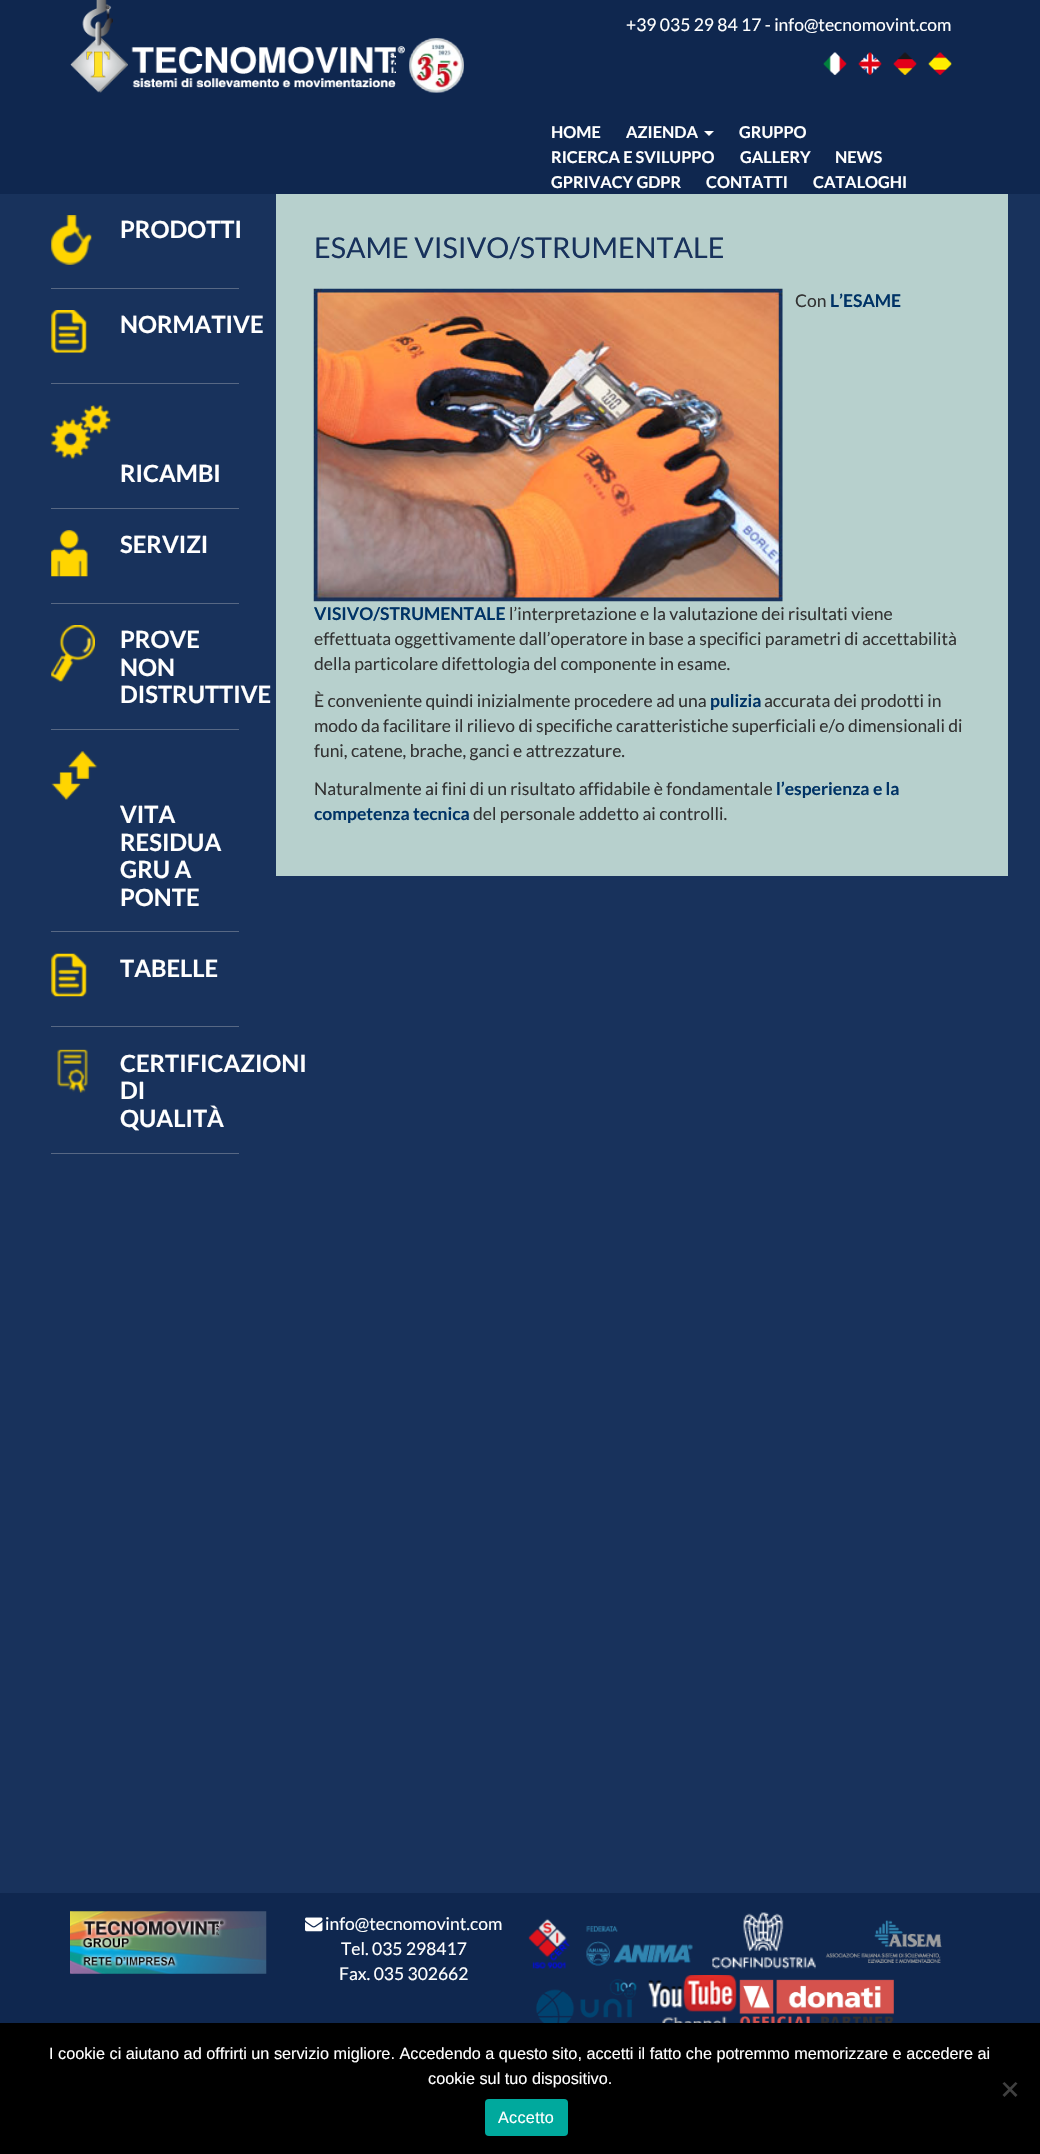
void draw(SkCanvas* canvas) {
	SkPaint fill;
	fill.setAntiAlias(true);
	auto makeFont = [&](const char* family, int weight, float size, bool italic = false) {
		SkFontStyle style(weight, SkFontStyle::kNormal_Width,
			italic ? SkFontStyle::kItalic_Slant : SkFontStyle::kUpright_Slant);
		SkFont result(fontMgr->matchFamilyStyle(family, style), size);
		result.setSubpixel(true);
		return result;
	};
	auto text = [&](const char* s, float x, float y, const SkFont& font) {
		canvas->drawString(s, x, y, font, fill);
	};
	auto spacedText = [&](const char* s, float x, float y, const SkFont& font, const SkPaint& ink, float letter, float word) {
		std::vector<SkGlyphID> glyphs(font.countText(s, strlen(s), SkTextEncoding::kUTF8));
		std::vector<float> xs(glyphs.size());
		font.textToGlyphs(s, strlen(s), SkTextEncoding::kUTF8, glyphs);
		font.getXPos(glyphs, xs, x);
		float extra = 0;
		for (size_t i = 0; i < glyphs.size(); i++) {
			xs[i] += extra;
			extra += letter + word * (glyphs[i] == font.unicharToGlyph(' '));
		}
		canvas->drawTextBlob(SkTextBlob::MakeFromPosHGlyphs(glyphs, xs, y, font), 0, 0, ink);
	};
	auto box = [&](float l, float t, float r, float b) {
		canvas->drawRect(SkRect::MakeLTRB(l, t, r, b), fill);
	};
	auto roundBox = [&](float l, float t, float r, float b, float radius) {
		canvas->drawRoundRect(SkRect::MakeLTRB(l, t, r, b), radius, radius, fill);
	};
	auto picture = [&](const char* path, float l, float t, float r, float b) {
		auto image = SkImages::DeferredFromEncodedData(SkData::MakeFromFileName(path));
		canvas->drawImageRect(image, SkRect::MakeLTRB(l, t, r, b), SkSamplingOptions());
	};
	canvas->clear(0xFF18325C);
	fill.setColor(0xFF0F274F);
	box(0, 0, 1040, 194);
	picture("image0.png", 70, 0, 464, 93);
	picture("image1.png", 823, 52, 847, 75);
	picture("image2.png", 858, 52, 882, 75);
	picture("image3.png", 893, 52, 917, 75);
	picture("image4.png", 928, 52, 952, 75);
	fill.setColor(0xFFFFFFFF);
	canvas->drawPath(SkPathBuilder().moveTo(704, 131).lineTo(714, 131).lineTo(709, 136).close().detach(), fill);
	fill.setColor(0xFF576884);
	box(51, 288, 239, 289);
	picture("image5.png", 51, 215, 92, 265);
	box(51, 383, 239, 384);
	picture("image6.png", 51, 310, 87, 353);
	box(51, 508, 239, 509);
	picture("image7.png", 51, 405, 112, 459);
	box(51, 603, 239, 604);
	picture("image8.png", 51, 530, 88, 577);
	box(51, 729, 239, 730);
	picture("image9.png", 51, 625, 95, 682);
	box(51, 931, 239, 932);
	picture("image10.png", 51, 751, 98, 800);
	box(51, 1026, 239, 1027);
	picture("image11.png", 51, 953, 87, 997);
	box(51, 1153, 239, 1154);
	picture("image12.png", 57, 1049, 88, 1093);
	fill.setColor(0xFFB7D0CD);
	box(276, 194, 1008, 876);
	picture("image13.png", 313, 288, 783, 602);
	fill.setColor(0xFF0F274F);
	box(0, 1893, 1040, 2023);
	picture("image14.png", 70, 1911, 267, 1974);
	picture("image15.png", 305, 1917, 323, 1932);
	picture("image16.png", 528, 1918, 570, 1969);
	picture("image17.png", 586, 1926, 693, 1966);
	picture("image18.png", 712, 1912, 816, 1969);
	picture("image19.png", 825, 1920, 942, 1964);
	picture("image20.png", 536, 1979, 637, 2023);
	picture("image21.png", 648, 1975, 737, 2023);
	picture("image22.png", 739, 1979, 894, 2023);
	fill.setColor(0xFF000000);
	box(0, 2023, 1040, 2154);
	fill.setColor(0xFF404040);
	canvas->drawPath(SkPathBuilder().moveTo(1015.5f, 2082).lineTo(1017.5f, 2083.5f).lineTo(1004.5f, 2097).lineTo(1002.5f, 2095).close().detach(), fill);
	canvas->drawPath(SkPathBuilder().moveTo(1002.5f, 2083.5f).lineTo(1004.5f, 2082).lineTo(1017.5f, 2095).lineTo(1015.5f, 2097).close().detach(), fill);
	fill.setColor(0xFF00A99D);
	roundBox(485, 2099, 568, 2136, 4);
	auto font1 = makeFont("Lato", 400, 17.5f);
	fill.setColor(0xFFFFFFFF);
	text("+39 035 29 84 17 - info@tecnomovint.com", 626, 31, font1);
	auto font2 = makeFont("Lato", 700, 16.25f);
	text("HOME", 551, 138, font2);
	text("AZIENDA", 626, 138, font2);
	text("GRUPPO", 739, 138, font2);
	text("RICERCA E SVILUPPO", 551, 163, font2);
	text("GALLERY", 740, 163, font2);
	text("NEWS", 835, 163, font2);
	text("GPRIVACY GDPR", 551, 188, font2);
	text("CONTATTI", 706, 188, font2);
	text("CATALOGHI", 813, 188, font2);
	auto font3 = makeFont("Lato", 700, 23.75f);
	text("PRODOTTI", 120, 238, font3);
	text("NORMATIVE", 120, 333, font3);
	text("RICAMBI", 120, 482, font3);
	text("SERVIZI", 120, 553, font3);
	text("PROVE", 120, 648, font3);
	text("NON", 120, 676, font3);
	text("DISTRUTTIVE", 120, 703, font3);
	text("VITA", 120, 823, font3);
	text("RESIDUA", 120, 851, font3);
	text("GRU A", 120, 878, font3);
	text("PONTE", 120, 906, font3);
	text("TABELLE", 120, 977, font3);
	text("CERTIFICAZIONI", 120, 1072, font3);
	text("DI", 120, 1099, font3);
	text("QUALITÀ", 120, 1127, font3);
	auto font4 = makeFont("Lato", 400, 28.75f);
	fill.setColor(0xFF18325C);
	text("ESAME VISIVO/STRUMENTALE", 314, 258, font4);
	fill.setColor(0xFF333333);
	text("Con", 795, 307, font1);
	auto font5 = makeFont("Lato", 700, 17.5f);
	fill.setColor(0xFF003366);
	text("L’ESAME", 830, 307, font5);
	text("VISIVO/STRUMENTALE", 314, 620, font5);
	fill.setColor(0xFF333333);
	text("l’interpretazione e la valutazione dei risultati viene", 509, 620, font1);
	text("effettuata oggettivamente dall’operatore in base a specifici parametri di accettabilità", 314, 645, font1);
	text("della particolare difettologia del componente in esame.", 314, 670, font1);
	text("È conveniente quindi inizialmente procedere ad una", 314, 707, font1);
	fill.setColor(0xFF003366);
	text("pulizia", 710, 707, font5);
	fill.setColor(0xFF333333);
	text("accurata dei prodotti in", 764, 707, font1);
	text("modo da facilitare il rilievo di specifiche caratteristiche superficiali e/o dimensionali di", 314, 732, font1);
	text("funi, catene, brache, ganci e attrezzature.", 314, 757, font1);
	text("Naturalmente ai fini di un risultato affidabile è fondamentale", 314, 795, font1);
	fill.setColor(0xFF003366);
	text("l’esperienza e la", 776, 795, font5);
	text("competenza tecnica", 314, 820, font5);
	fill.setColor(0xFF333333);
	text("del personale addetto ai controlli.", 473, 820, font1);
	fill.setColor(0xFFFFFFFF);
	text("info@tecnomovint.com", 325, 1930, font1);
	text("Tel. 035 298417", 341, 1955, font1);
	text("Fax. 035 302662", 339, 1980, font1);
	auto font6 = makeFont("Liberation Sans", 400, 16.25f);
	text("I cookie ci aiutano ad offrirti un servizio migliore. Accedendo a questo sito, accetti il fatto che potremmo memorizzare e accedere ai", 49, 2059, font6);
	text("cookie sul tuo dispositivo.", 428, 2084, font6);
	spacedText("Accetto", 498, 2123, font6, fill, 0.25f, 0);
}
